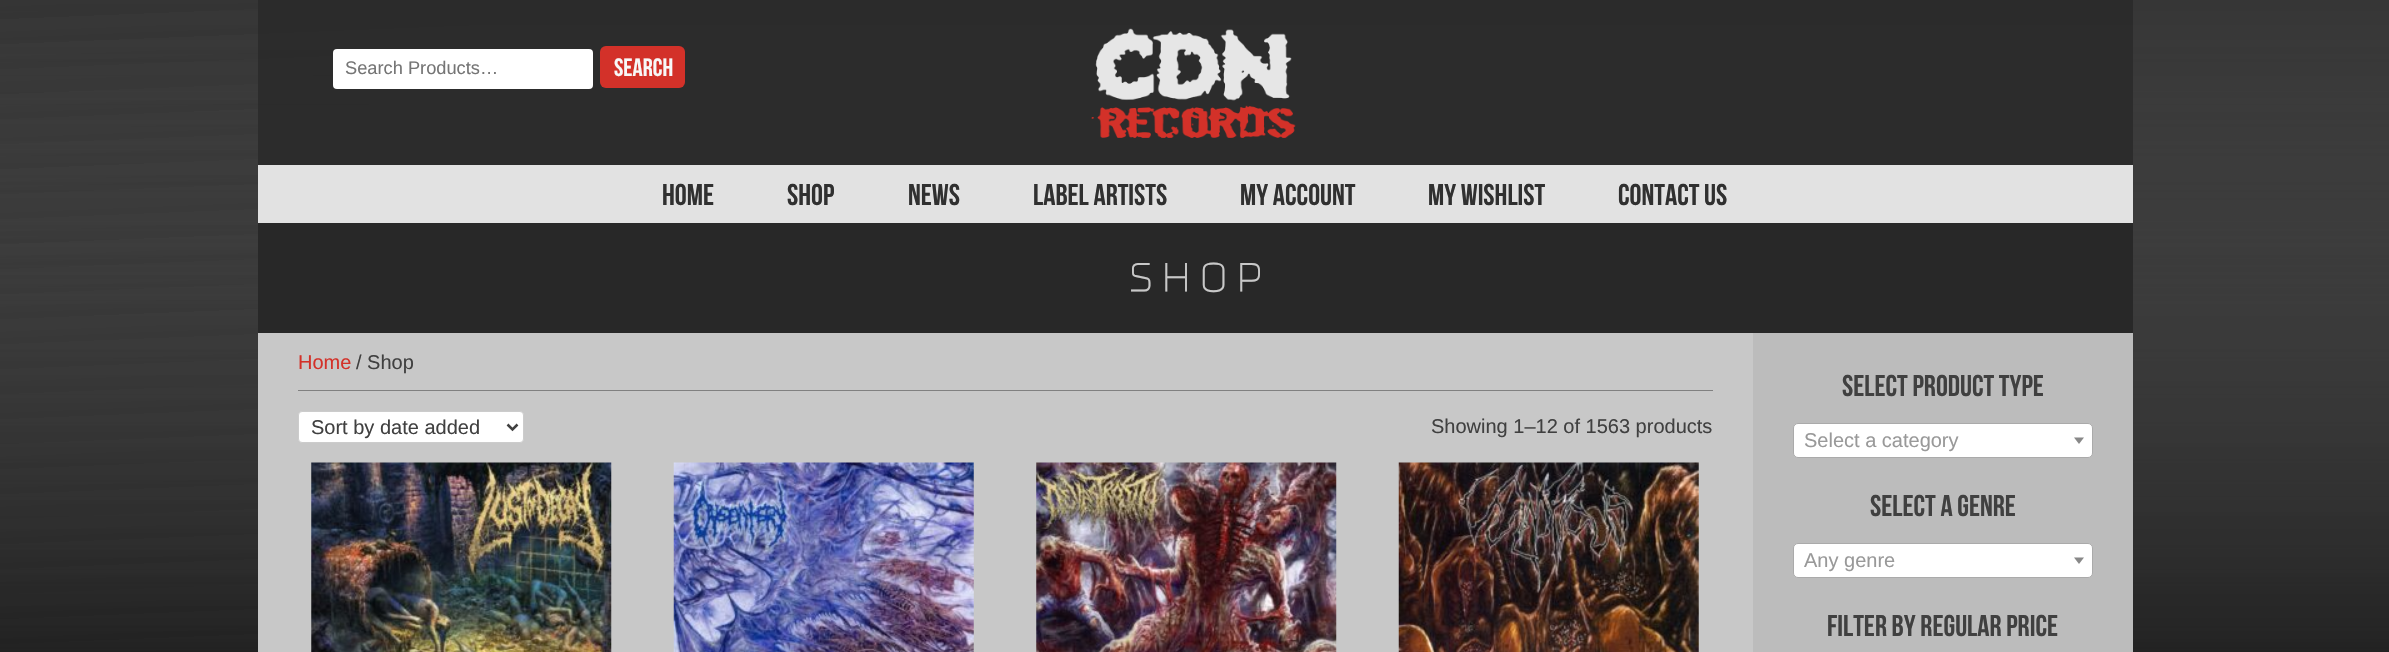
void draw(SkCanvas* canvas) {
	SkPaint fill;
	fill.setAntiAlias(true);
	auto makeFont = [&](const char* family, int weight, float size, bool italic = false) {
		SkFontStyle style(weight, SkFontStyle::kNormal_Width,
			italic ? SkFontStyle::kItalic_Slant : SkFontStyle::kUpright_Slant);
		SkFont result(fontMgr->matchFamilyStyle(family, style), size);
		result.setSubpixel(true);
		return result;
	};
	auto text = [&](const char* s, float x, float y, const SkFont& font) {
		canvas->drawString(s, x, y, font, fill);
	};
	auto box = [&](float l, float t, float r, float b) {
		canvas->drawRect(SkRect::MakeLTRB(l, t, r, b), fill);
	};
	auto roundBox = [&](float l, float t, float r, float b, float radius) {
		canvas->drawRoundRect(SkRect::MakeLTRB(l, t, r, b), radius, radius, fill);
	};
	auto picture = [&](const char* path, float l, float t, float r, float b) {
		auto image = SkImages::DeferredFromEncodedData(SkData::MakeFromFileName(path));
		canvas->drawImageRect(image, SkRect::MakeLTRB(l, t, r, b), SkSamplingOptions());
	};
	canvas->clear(0xFF191919);
	picture("image0.png", 0, 0, 2389, 652);
	{
		const SkColor colors[] = {0x26C8C8C8, 0x80282828};
		const float stops[] = {0, 1};
		const SkPoint ends[] = {{1195, 0}, {1195, 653}};
		fill.setShader(SkGradientShader::MakeLinear(ends, colors, stops, 2, SkTileMode::kClamp));
		fill.setAlpha(255);
	}
	box(0, 0, 2389, 652);
	fill.setShader(nullptr);
	fill.setColor(0xCC282828);
	box(258, 0, 2133, 165);
	picture("image1.png", 1091, 28, 1296, 138);
	fill.setColor(0xFFFFFFFF);
	roundBox(333, 49, 593, 89, 4);
	fill.setColor(0xFFD33129);
	roundBox(600, 46, 685, 88, 6);
	fill.setColor(0xFFE2E2E2);
	box(258, 165, 2133, 223);
	fill.setColor(0xFFC8C8C8);
	box(258, 333, 1753, 652);
	fill.setColor(0xFF282828);
	box(258, 223, 2133, 333);
	fill.setColor(0xFF808080);
	box(298, 390, 1713, 391);
	fill.setColor(0xFFFFFFFF);
	canvas->drawRoundRect(SkRect::MakeLTRB(298.5f, 411.5f, 523.5f, 442.5f), 3.5f, 3.5f, fill);
	fill.setStyle(SkPaint::kStroke_Style);
	fill.setStrokeWidth(1);
	fill.setColor(0xFFCCCCCC);
	canvas->drawRoundRect(SkRect::MakeLTRB(298.5f, 411.5f, 523.5f, 442.5f), 3.5f, 3.5f, fill);
	fill.setStrokeWidth(2.5f);
	fill.setColor(0xFF404040);
	canvas->drawPath(SkPathBuilder().moveTo(507.5f, 424.5f).lineTo(512.5f, 429.5f).lineTo(517.5f, 424.5f).detach(), fill);
	picture("image2.png", 311, 462, 612, 652);
	picture("image3.png", 673, 462, 974, 652);
	picture("image4.png", 1036, 462, 1337, 652);
	picture("image5.png", 1398, 462, 1699, 652);
	fill.setStyle(SkPaint::kFill_Style);
	fill.setColor(0xFFBCBCBC);
	box(1753, 333, 2133, 652);
	fill.setColor(0xFFFFFFFF);
	canvas->drawRoundRect(SkRect::MakeLTRB(1793.5f, 423.5f, 2092.5f, 457.5f), 4.5f, 4.5f, fill);
	fill.setStyle(SkPaint::kStroke_Style);
	fill.setStrokeWidth(1);
	fill.setColor(0xFFAAAAAA);
	canvas->drawRoundRect(SkRect::MakeLTRB(1793.5f, 423.5f, 2092.5f, 457.5f), 4.5f, 4.5f, fill);
	fill.setStyle(SkPaint::kFill_Style);
	fill.setColor(0xFF888888);
	canvas->drawPath(SkPathBuilder().moveTo(2074, 437.5f).lineTo(2084, 437.5f).lineTo(2079, 444).close().detach(), fill);
	fill.setColor(0xFFFFFFFF);
	canvas->drawRoundRect(SkRect::MakeLTRB(1793.5f, 543.5f, 2092.5f, 577.5f), 4.5f, 4.5f, fill);
	fill.setStyle(SkPaint::kStroke_Style);
	fill.setColor(0xFFAAAAAA);
	canvas->drawRoundRect(SkRect::MakeLTRB(1793.5f, 543.5f, 2092.5f, 577.5f), 4.5f, 4.5f, fill);
	fill.setStyle(SkPaint::kFill_Style);
	fill.setColor(0xFF888888);
	canvas->drawPath(SkPathBuilder().moveTo(2074, 557.5f).lineTo(2084, 557.5f).lineTo(2079, 564).close().detach(), fill);
	auto font1 = makeFont("Liberation Sans", 400, 18.25f);
	fill.setColor(0xFF757575);
	text("Search Products…", 345, 74, font1);
	auto font2 = makeFont("Bebas Neue", 700, 25);
	fill.setColor(0xFFF8F8F8);
	text("SEARCH", 614, 76, font2);
	auto font3 = makeFont("Bebas Neue", 700, 30);
	fill.setColor(0xFF303030);
	text("HOME", 662, 205, font3);
	text("SHOP", 787, 205, font3);
	text("NEWS", 908, 205, font3);
	text("LABEL ARTISTS", 1033, 205, font3);
	text("MY ACCOUNT", 1240, 205, font3);
	text("MY WISHLIST", 1428, 205, font3);
	text("CONTACT US", 1618, 205, font3);
	auto font4 = makeFont("Bungee Hairline", 700, 50);
	fill.setColor(0xFFC8C8C8);
	text("Shop", 1124, 296, font4);
	auto font5 = makeFont("Liberation Sans", 400, 20);
	fill.setColor(0xFFD33129);
	text("Home", 298, 369, font5);
	fill.setColor(0xFF404040);
	text("/ Shop", 356, 369, font5);
	text("Sort by date added", 311, 434, font5);
	text("Showing 1–12 of 1563 products", 1431, 433, font5);
	text("Select Product Type", 1842, 396, font3);
	fill.setColor(0xFF999999);
	text("Select a category", 1804, 447, font5);
	fill.setColor(0xFF404040);
	text("Select A Genre", 1870, 516, font3);
	fill.setColor(0xFF999999);
	text("Any genre", 1804, 567, font5);
	fill.setColor(0xFF404040);
	text("Filter by Regular Price", 1827, 636, font3);
}
